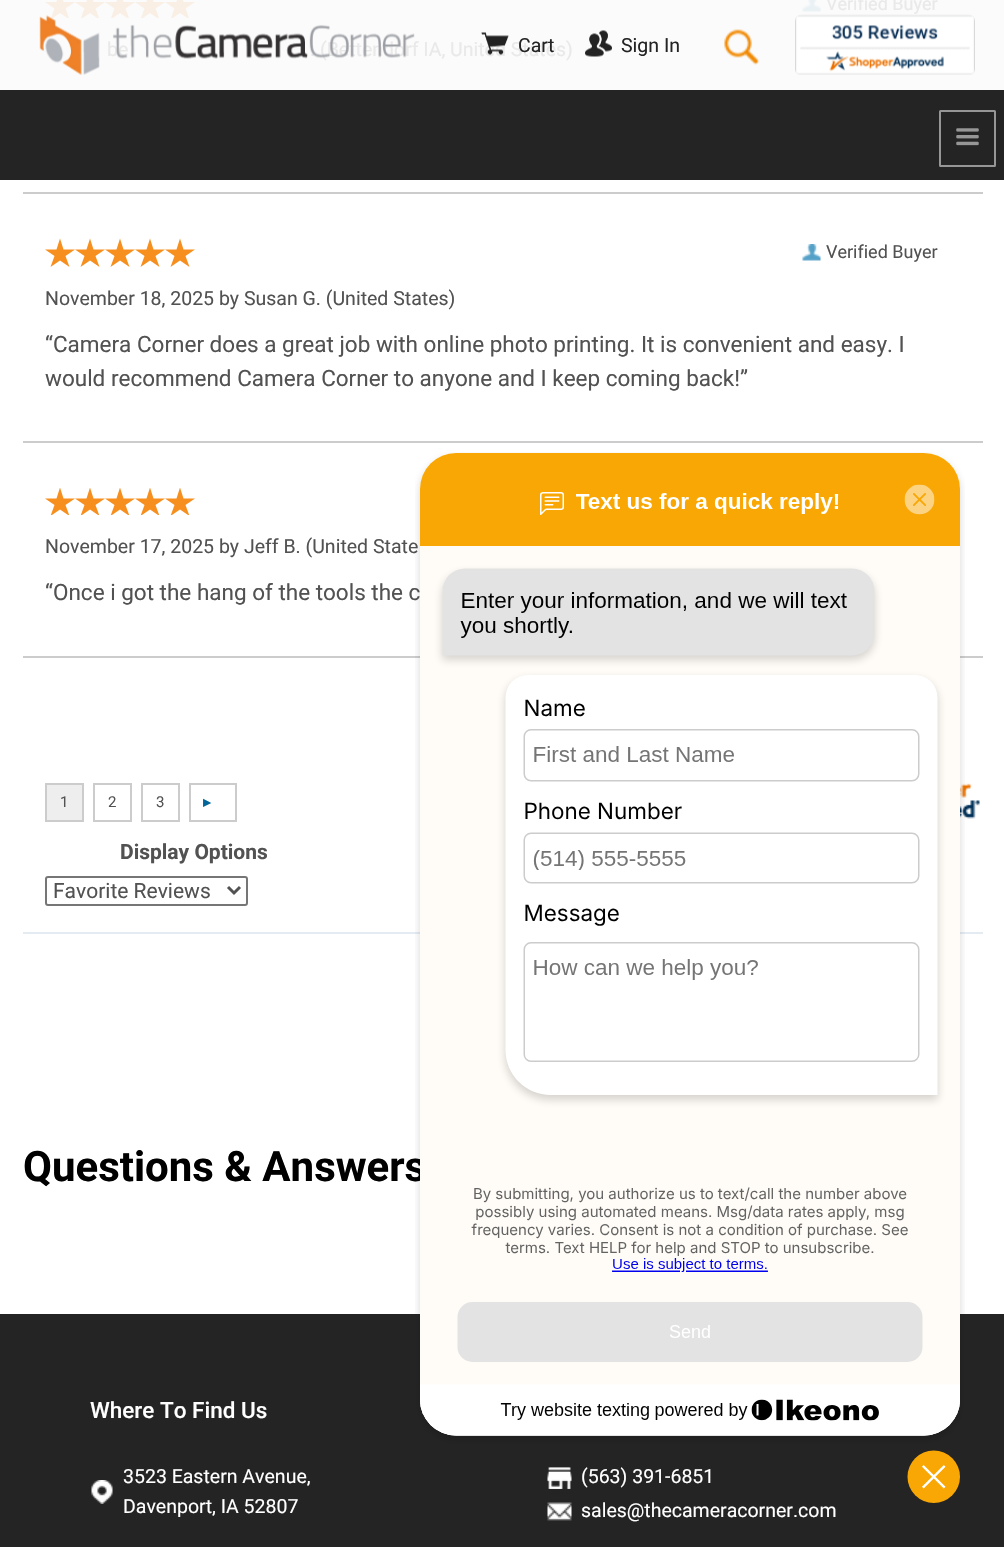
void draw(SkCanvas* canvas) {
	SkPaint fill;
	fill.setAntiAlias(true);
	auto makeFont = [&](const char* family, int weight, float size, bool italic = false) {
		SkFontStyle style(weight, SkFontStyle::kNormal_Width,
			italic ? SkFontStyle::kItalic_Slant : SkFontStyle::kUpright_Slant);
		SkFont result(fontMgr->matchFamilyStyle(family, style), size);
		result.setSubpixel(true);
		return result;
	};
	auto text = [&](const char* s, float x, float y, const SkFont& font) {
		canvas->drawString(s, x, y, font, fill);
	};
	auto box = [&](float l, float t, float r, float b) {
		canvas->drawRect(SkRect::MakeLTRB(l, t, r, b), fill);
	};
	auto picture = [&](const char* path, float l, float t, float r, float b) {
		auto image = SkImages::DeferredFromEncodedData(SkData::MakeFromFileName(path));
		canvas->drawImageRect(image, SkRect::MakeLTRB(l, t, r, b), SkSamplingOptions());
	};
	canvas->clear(0xFFFFFFFF);
	fill.setColor(0xFFFBFBFB);
	box(0, 0, 1004, 90);
	fill.setColor(0xFFCCCCCC);
	box(23, 192, 983, 194);
	canvas->save();
	canvas->clipRect(SkRect::MakeLTRB(45, 0, 75, 18));
	fill.setColor(0xFFFAEFE4);
	canvas->drawPath(SkPathBuilder().moveTo(60, -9).lineTo(63.5f, 2).lineTo(75, 2).lineTo(65.5f, 8.5f).lineTo(69.5f, 19.5f).lineTo(60, 13).lineTo(50.5f, 19.5f).lineTo(54.5f, 8.5f).lineTo(45, 2).lineTo(56.5f, 2).close().detach(), fill);
	canvas->restore();
	canvas->save();
	canvas->clipRect(SkRect::MakeLTRB(75, 0, 105, 18));
	canvas->drawPath(SkPathBuilder().moveTo(90, -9).lineTo(93.5f, 2).lineTo(105, 2).lineTo(95.5f, 8.5f).lineTo(99.5f, 19.5f).lineTo(90, 13).lineTo(80.5f, 19.5f).lineTo(84.5f, 8.5f).lineTo(75, 2).lineTo(86.5f, 2).close().detach(), fill);
	canvas->restore();
	canvas->save();
	canvas->clipRect(SkRect::MakeLTRB(105, 0, 135, 18));
	canvas->drawPath(SkPathBuilder().moveTo(120, -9).lineTo(123.5f, 2).lineTo(135, 2).lineTo(125.5f, 8.5f).lineTo(129.5f, 19.5f).lineTo(120, 13).lineTo(110.5f, 19.5f).lineTo(114.5f, 8.5f).lineTo(105, 2).lineTo(116.5f, 2).close().detach(), fill);
	canvas->restore();
	canvas->save();
	canvas->clipRect(SkRect::MakeLTRB(135, 0, 165, 18));
	canvas->drawPath(SkPathBuilder().moveTo(150, -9).lineTo(153.5f, 2).lineTo(165, 2).lineTo(155.5f, 8.5f).lineTo(159.5f, 19.5f).lineTo(150, 13).lineTo(140.5f, 19.5f).lineTo(144.5f, 8.5f).lineTo(135, 2).lineTo(146.5f, 2).close().detach(), fill);
	canvas->restore();
	canvas->save();
	canvas->clipRect(SkRect::MakeLTRB(165, 0, 195, 18));
	canvas->drawPath(SkPathBuilder().moveTo(180, -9).lineTo(183.5f, 2).lineTo(195, 2).lineTo(185.5f, 8.5f).lineTo(189.5f, 19.5f).lineTo(180, 13).lineTo(170.5f, 19.5f).lineTo(174.5f, 8.5f).lineTo(165, 2).lineTo(176.5f, 2).close().detach(), fill);
	canvas->restore();
	picture("image0.png", 802, 0, 821, 12);
	fill.setColor(0xFFCCCCCC);
	box(23, 441, 983, 443);
	fill.setColor(0xFFF78F1E);
	canvas->drawPath(SkPathBuilder().moveTo(60, 238.5f).lineTo(63.5f, 249.5f).lineTo(75, 249.5f).lineTo(65.5f, 256).lineTo(69.5f, 267).lineTo(60, 260.5f).lineTo(50.5f, 267).lineTo(54.5f, 256).lineTo(45, 249.5f).lineTo(56.5f, 249.5f).close().moveTo(90, 238.5f).lineTo(93.5f, 249.5f).lineTo(105, 249.5f).lineTo(95.5f, 256).lineTo(99.5f, 267).lineTo(90, 260.5f).lineTo(80.5f, 267).lineTo(84.5f, 256).lineTo(75, 249.5f).lineTo(86.5f, 249.5f).close().detach(), fill);
	canvas->drawPath(SkPathBuilder().moveTo(120, 238.5f).lineTo(123.5f, 249.5f).lineTo(135, 249.5f).lineTo(125.5f, 256).lineTo(129.5f, 267).lineTo(120, 260.5f).lineTo(110.5f, 267).lineTo(114.5f, 256).lineTo(105, 249.5f).lineTo(116.5f, 249.5f).close().moveTo(150, 238.5f).lineTo(153.5f, 249.5f).lineTo(165, 249.5f).lineTo(155.5f, 256).lineTo(159.5f, 267).lineTo(150, 260.5f).lineTo(140.5f, 267).lineTo(144.5f, 256).lineTo(135, 249.5f).lineTo(146.5f, 249.5f).close().detach(), fill);
	canvas->drawPath(SkPathBuilder().moveTo(180, 238.5f).lineTo(183.5f, 249.5f).lineTo(195, 249.5f).lineTo(185.5f, 256).lineTo(189.5f, 267).lineTo(180, 260.5f).lineTo(170.5f, 267).lineTo(174.5f, 256).lineTo(165, 249.5f).lineTo(176.5f, 249.5f).close().detach(), fill);
	picture("image1.png", 802, 244, 821, 261);
	fill.setColor(0xFFCCCCCC);
	box(23, 656, 983, 658);
	canvas->save();
	canvas->clipRect(SkRect::MakeLTRB(45, 488, 75, 515));
	fill.setColor(0xFFF78F1E);
	canvas->drawPath(SkPathBuilder().moveTo(60, 487.5f).lineTo(63.5f, 498.5f).lineTo(75, 498.5f).lineTo(65.5f, 505).lineTo(69.5f, 516).lineTo(60, 509.5f).lineTo(50.5f, 516).lineTo(54.5f, 505).lineTo(45, 498.5f).lineTo(56.5f, 498.5f).close().detach(), fill);
	canvas->restore();
	canvas->save();
	canvas->clipRect(SkRect::MakeLTRB(75, 488, 105, 515));
	canvas->drawPath(SkPathBuilder().moveTo(90, 487.5f).lineTo(93.5f, 498.5f).lineTo(105, 498.5f).lineTo(95.5f, 505).lineTo(99.5f, 516).lineTo(90, 509.5f).lineTo(80.5f, 516).lineTo(84.5f, 505).lineTo(75, 498.5f).lineTo(86.5f, 498.5f).close().detach(), fill);
	canvas->restore();
	canvas->save();
	canvas->clipRect(SkRect::MakeLTRB(105, 488, 135, 515));
	canvas->drawPath(SkPathBuilder().moveTo(120, 487.5f).lineTo(123.5f, 498.5f).lineTo(135, 498.5f).lineTo(125.5f, 505).lineTo(129.5f, 516).lineTo(120, 509.5f).lineTo(110.5f, 516).lineTo(114.5f, 505).lineTo(105, 498.5f).lineTo(116.5f, 498.5f).close().detach(), fill);
	canvas->restore();
	canvas->save();
	canvas->clipRect(SkRect::MakeLTRB(135, 488, 165, 515));
	canvas->drawPath(SkPathBuilder().moveTo(150, 487.5f).lineTo(153.5f, 498.5f).lineTo(165, 498.5f).lineTo(155.5f, 505).lineTo(159.5f, 516).lineTo(150, 509.5f).lineTo(140.5f, 516).lineTo(144.5f, 505).lineTo(135, 498.5f).lineTo(146.5f, 498.5f).close().detach(), fill);
	canvas->restore();
	canvas->save();
	canvas->clipRect(SkRect::MakeLTRB(165, 488, 195, 515));
	canvas->drawPath(SkPathBuilder().moveTo(180, 487.5f).lineTo(183.5f, 498.5f).lineTo(195, 498.5f).lineTo(185.5f, 505).lineTo(189.5f, 516).lineTo(180, 509.5f).lineTo(170.5f, 516).lineTo(174.5f, 505).lineTo(165, 498.5f).lineTo(176.5f, 498.5f).close().detach(), fill);
	canvas->restore();
	fill.setColor(0xFFEEEEEE);
	canvas->drawRect(SkRect::MakeLTRB(46, 784, 83, 821), fill);
	fill.setStyle(SkPaint::kStroke_Style);
	fill.setStrokeWidth(2);
	fill.setColor(0xFFCCCCCC);
	canvas->drawRect(SkRect::MakeLTRB(46, 784, 83, 821), fill);
	canvas->drawRect(SkRect::MakeLTRB(94, 784, 131, 821), fill);
	canvas->drawRect(SkRect::MakeLTRB(142, 784, 179, 821), fill);
	canvas->drawRect(SkRect::MakeLTRB(190, 784, 236, 821), fill);
	fill.setColor(0xFF767676);
	canvas->drawRoundRect(SkRect::MakeLTRB(46, 877, 247, 905), 2, 2, fill);
	fill.setStrokeWidth(3);
	fill.setColor(0xFF525252);
	canvas->drawPath(SkPathBuilder().moveTo(228, 887).lineTo(234, 893).lineTo(240, 887).detach(), fill);
	picture("image2.png", 960, 783, 980, 819);
	fill.setStyle(SkPaint::kFill_Style);
	fill.setColor(0xFFE4EBF3);
	box(23, 932, 983, 934);
	picture("image5.png", 585, 30, 612, 57);
	picture("image6.png", 724, 29, 760, 65);
	picture("image7.png", 795, 14, 975, 75);
	fill.setColor(0xFF242424);
	box(0, 90, 1004, 180);
	fill.setStyle(SkPaint::kStroke_Style);
	fill.setStrokeWidth(2);
	fill.setColor(0xFF969696);
	canvas->drawRoundRect(SkRect::MakeLTRB(940, 111, 995, 166), 0.5f, 0.5f, fill);
	picture("image8.png", 956, 128, 979, 146);
	fill.setStyle(SkPaint::kFill_Style);
	fill.setColor(0xFF242424);
	box(0, 1314, 1004, 1547);
	picture("image10.png", 91, 1480, 113, 1504);
	picture("image11.png", 547, 1467, 572, 1489);
	picture("image12.png", 547, 1502, 572, 1521);
	auto font1 = makeFont("Roboto", 400, 18);
	fill.setColor(0xFFE9E9E9);
	text("Verified Buyer", 826, 10, font1);
	auto font2 = makeFont("Roboto", 400, 19.5f);
	text("be", 107, 56, font2);
	text(". (Bettendorf IA, United States)", 310, 56, font2);
	fill.setColor(0xFF525252);
	text("Verified Buyer", 826, 258, font1);
	text("November 18, 2025 by Susan G. (United States)", 45, 305, font2);
	auto font3 = makeFont("Roboto", 400, 22.5f);
	text("“Camera Corner does a great job with online photo printing. It is convenient and easy. I", 45, 352, font3);
	text("would recommend Camera Corner to anyone and I keep coming back!”", 45, 386, font3);
	text("November 17, 2025 by Jeff B. (United State", 45, 553, font2);
	text("“Once i got the hang of the tools the c", 45, 600, font3);
	auto font4 = makeFont("Roboto", 400, 15);
	text("1", 60, 807, font4);
	text("2", 108, 807, font4);
	text("3", 156, 807, font4);
	auto font5 = makeFont("DejaVu Sans", 700, 15);
	fill.setColor(0xFF02669A);
	text("▸", 203, 807, font5);
	auto font6 = makeFont("Roboto", 700, 21);
	fill.setColor(0xFF525252);
	text("Display Options", 120, 859, font6);
	auto font7 = makeFont("Roboto", 400, 21);
	text("Favorite Reviews", 53, 898, font7);
	auto font8 = makeFont("Roboto", 700, 42);
	fill.setColor(0xFF000000);
	text("Questions & Answers", 23, 1181, font8);
	picture("image3.png", 39, 15, 415, 75);
	picture("image4.png", 481, 32, 509, 55);
	fill.setColor(0xFF242424);
	text("Cart", 518, 52, font2);
	text("Sign In", 621, 52, font2);
	auto font9 = makeFont("Roboto", 500, 22.5f);
	fill.setColor(0xFFFFFFFF);
	text("Where To Find Us", 90, 1418, font9);
	text("3523 Eastern Avenue,", 123, 1483, font2);
	text("Davenport, IA 52807", 123, 1513, font2);
	text("(563) 391-6851", 581, 1483, font2);
	text("sales@thecameracorner.com", 581, 1517, font2);
	picture("image9.png", 415, 452, 965, 1503);
}
